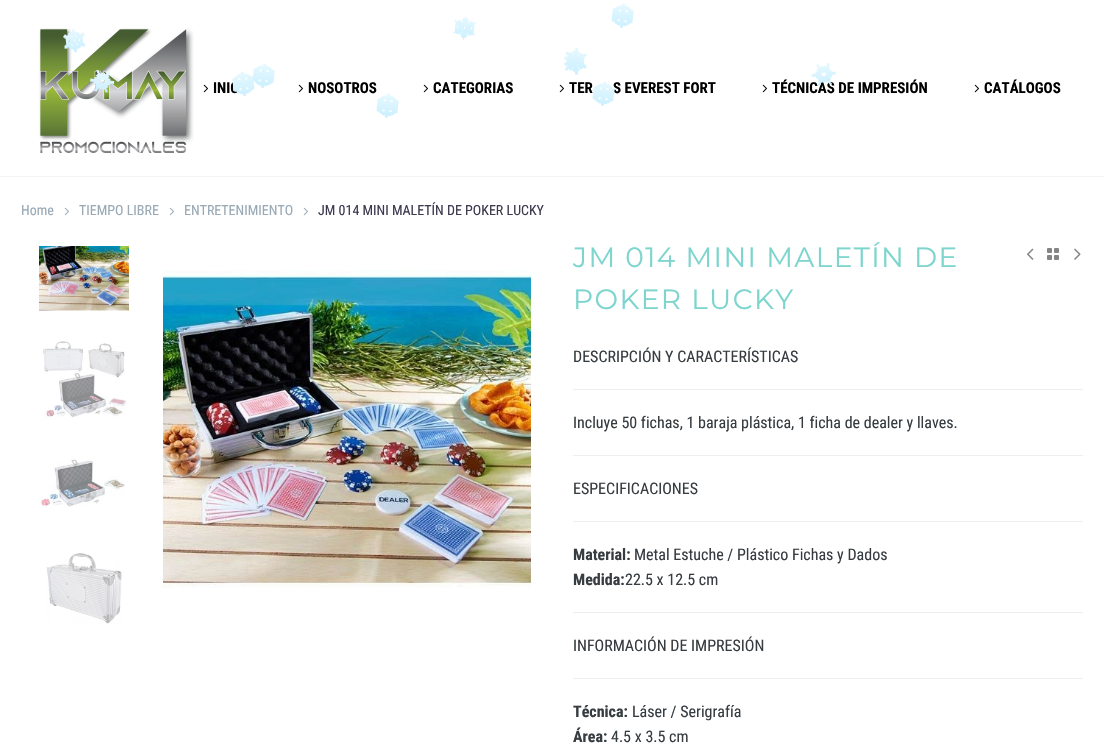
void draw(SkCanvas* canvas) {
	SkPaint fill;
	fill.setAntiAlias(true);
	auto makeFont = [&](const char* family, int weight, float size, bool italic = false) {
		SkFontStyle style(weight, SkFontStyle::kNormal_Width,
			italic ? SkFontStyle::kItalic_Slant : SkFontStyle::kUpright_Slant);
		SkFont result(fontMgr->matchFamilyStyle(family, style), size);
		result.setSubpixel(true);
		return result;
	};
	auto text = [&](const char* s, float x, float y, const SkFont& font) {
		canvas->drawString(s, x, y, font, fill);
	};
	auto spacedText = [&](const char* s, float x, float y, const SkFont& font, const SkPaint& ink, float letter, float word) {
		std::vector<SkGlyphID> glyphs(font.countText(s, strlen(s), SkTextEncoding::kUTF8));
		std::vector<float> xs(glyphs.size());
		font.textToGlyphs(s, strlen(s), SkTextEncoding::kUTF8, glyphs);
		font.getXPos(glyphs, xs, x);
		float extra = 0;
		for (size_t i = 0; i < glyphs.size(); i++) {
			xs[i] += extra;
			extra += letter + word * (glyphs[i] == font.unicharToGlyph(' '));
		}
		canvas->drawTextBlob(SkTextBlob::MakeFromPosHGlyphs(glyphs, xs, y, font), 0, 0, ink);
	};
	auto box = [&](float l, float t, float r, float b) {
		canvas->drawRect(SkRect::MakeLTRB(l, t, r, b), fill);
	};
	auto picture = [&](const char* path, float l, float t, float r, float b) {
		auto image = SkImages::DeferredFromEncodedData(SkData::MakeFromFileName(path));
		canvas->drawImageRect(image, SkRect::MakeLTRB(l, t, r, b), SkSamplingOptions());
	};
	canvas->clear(0xFFFFFFFF);
	canvas->save();
	canvas->clipRect(SkRect::MakeLTRB(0, 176, 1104, 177));
	fill.setColor(0x33384554);
	fill.setMaskFilter(SkMaskFilter::MakeBlur(kNormal_SkBlurStyle, 1));
	canvas->drawRect(SkRect::MakeLTRB(0, 0, 1104, 176), fill);
	fill.setMaskFilter(nullptr);
	canvas->restore();
	picture("image9.png", 39, 28, 194, 153);
	picture("image0.png", 63, 28, 86, 53);
	picture("image1.png", 453, 16, 476, 40);
	picture("image2.png", 611, 3, 634, 28);
	picture("image7.png", 564, 50, 587, 75);
	picture("image3.png", 564, 47, 587, 72);
	picture("image4.png", 90, 70, 115, 93);
	picture("image6.png", 252, 63, 275, 88);
	picture("image10.png", 203, 84, 208, 93);
	picture("image10.png", 298, 84, 303, 93);
	picture("image10.png", 423, 84, 428, 93);
	picture("image10.png", 559, 84, 564, 93);
	picture("image10.png", 762, 84, 767, 93);
	picture("image10.png", 974, 84, 979, 93);
	picture("image11.png", 64, 207, 69, 216);
	picture("image11.png", 169, 207, 174, 216);
	picture("image11.png", 303, 207, 308, 216);
	picture("image12.png", 39, 246, 129, 311);
	picture("image13.png", 43, 341, 127, 419);
	picture("image14.png", 39, 459, 125, 507);
	picture("image15.png", 46, 553, 122, 624);
	picture("image16.png", 163, 270, 531, 588);
	picture("image17.png", 1027, 248, 1034, 260);
	picture("image18.png", 1047, 248, 1059, 260);
	picture("image19.png", 1074, 248, 1081, 260);
	fill.setColor(0xFFEEEEEE);
	box(573, 389, 1083, 390);
	box(573, 455, 1083, 456);
	box(573, 521, 1083, 522);
	box(573, 612, 1083, 613);
	box(573, 678, 1083, 679);
	auto font1 = makeFont("Roboto Condensed", 700, 15);
	fill.setColor(0xFF000000);
	text("INIC", 213, 93, font1);
	picture("image5.png", 232, 71, 255, 96);
	text("NOSOTROS", 308, 93, font1);
	text("CATEGORIAS", 433, 93, font1);
	text("TER", 569, 93, font1);
	text("S EVEREST FORT", 613, 93, font1);
	text("TÉCNICAS DE IMPRESIÓN", 772, 93, font1);
	picture("image8.png", 811, 63, 836, 86);
	text("CATÁLOGOS", 984, 93, font1);
	auto font2 = makeFont("Roboto Condensed", 400, 14);
	fill.setColor(0xFF99A9B5);
	text("Home", 21, 215, font2);
	text("TIEMPO LIBRE", 79, 215, font2);
	text("ENTRETENIMIENTO", 184, 215, font2);
	fill.setColor(0xFF3C3950);
	text("JM 014 MINI MALETÍN DE POKER LUCKY", 318, 215, font2);
	auto font3 = makeFont("Montserrat", 400, 28);
	fill.setColor(0xFF7DD5CE);
	spacedText("JM 014 MINI MALETÍN DE", 573, 267, font3, fill, 1.4f, 0);
	spacedText("POKER LUCKY", 573, 309, font3, fill, 1.4f, 0);
	auto font4 = makeFont("Roboto Condensed", 400, 16);
	fill.setColor(0xFF363C40);
	text("DESCRIPCIÓN Y CARACTERÍSTICAS", 573, 362, font4);
	text("Incluye 50 fichas, 1 baraja plástica, 1 ficha de dealer y llaves.", 573, 428, font4);
	text("ESPECIFICACIONES", 573, 494, font4);
	auto font5 = makeFont("Roboto Condensed", 700, 16);
	text("Material:", 573, 560, font5);
	text("Metal Estuche / Plástico Fichas y Dados", 634, 560, font4);
	text("Medida:", 573, 585, font5);
	text("22.5 x 12.5 cm", 625, 585, font4);
	text("INFORMACIÓN DE IMPRESIÓN", 573, 651, font4);
	text("Técnica:", 573, 717, font5);
	text("Láser / Serigrafía", 632, 717, font4);
	text("Área:", 573, 742, font5);
	text("4.5 x 3.5 cm", 611, 742, font4);
	picture("image6.png", 376, 93, 399, 118);
	picture("image20.png", 592, 81, 615, 106);
}
